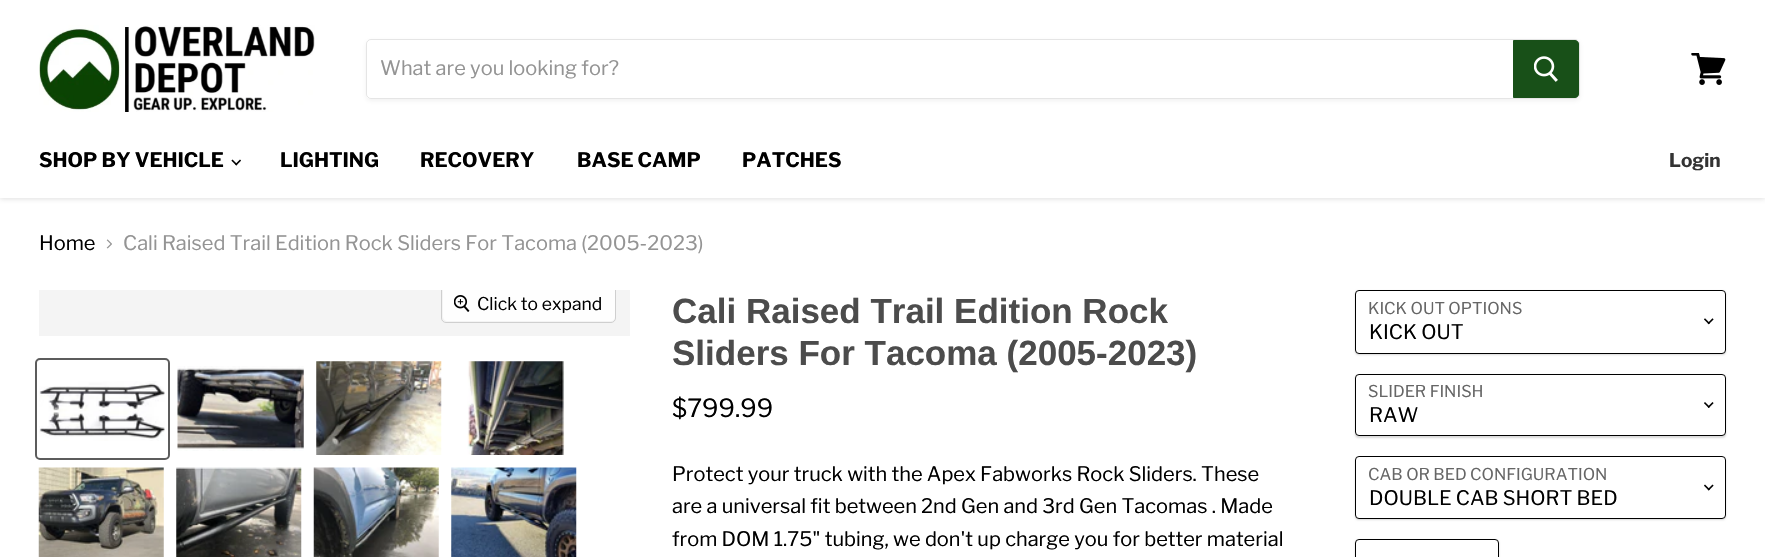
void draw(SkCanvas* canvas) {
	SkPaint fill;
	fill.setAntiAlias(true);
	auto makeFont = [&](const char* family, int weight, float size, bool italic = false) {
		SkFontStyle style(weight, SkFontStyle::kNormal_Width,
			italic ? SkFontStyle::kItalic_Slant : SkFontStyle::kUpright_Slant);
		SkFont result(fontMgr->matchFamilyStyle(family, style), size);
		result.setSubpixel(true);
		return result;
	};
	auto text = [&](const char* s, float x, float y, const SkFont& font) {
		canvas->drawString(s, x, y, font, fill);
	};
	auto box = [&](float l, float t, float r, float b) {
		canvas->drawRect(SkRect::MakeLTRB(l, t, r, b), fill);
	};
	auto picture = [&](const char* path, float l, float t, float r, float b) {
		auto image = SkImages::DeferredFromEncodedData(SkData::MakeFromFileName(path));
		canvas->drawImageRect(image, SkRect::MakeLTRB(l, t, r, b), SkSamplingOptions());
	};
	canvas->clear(0xFFFFFFFF);
	fill.setColor(0x407F7F7F);
	fill.setMaskFilter(SkMaskFilter::MakeBlur(kNormal_SkBlurStyle, 2.5f));
	canvas->drawRect(SkRect::MakeLTRB(0, 1, 1765, 199), fill);
	fill.setMaskFilter(nullptr);
	fill.setColor(0xFFFFFFFF);
	box(0, 0, 1765, 198);
	picture("image0.png", 39, 25, 315, 112);
	canvas->save();
	canvas->clipPath(SkPathBuilder(SkPathFillType::kEvenOdd).moveTo(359, 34).lineTo(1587, 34).lineTo(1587, 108).lineTo(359, 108).close().moveTo(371, 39).lineTo(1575, 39).cubicTo(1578, 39, 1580, 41, 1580, 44).lineTo(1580, 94).cubicTo(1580, 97, 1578, 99, 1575, 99).lineTo(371, 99).cubicTo(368, 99, 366, 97, 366, 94).lineTo(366, 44).cubicTo(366, 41, 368, 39, 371, 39).close().detach(), true);
	fill.setColor(0x1C7F7F7F);
	fill.setMaskFilter(SkMaskFilter::MakeBlur(kNormal_SkBlurStyle, 2));
	canvas->drawRoundRect(SkRect::MakeLTRB(366, 41, 1580, 101), 5, 5, fill);
	fill.setMaskFilter(nullptr);
	canvas->restore();
	fill.setStyle(SkPaint::kStroke_Style);
	fill.setStrokeWidth(1);
	fill.setColor(0x337F7F7F);
	canvas->drawRoundRect(SkRect::MakeLTRB(366.5f, 39.5f, 1579.5f, 98.5f), 4.5f, 4.5f, fill);
	fill.setStyle(SkPaint::kFill_Style);
	fill.setColor(0xFF185018);
	canvas->drawPath(SkPathBuilder().moveTo(1513.5f, 40.5f).lineTo(1575, 40.5f).cubicTo(1577, 40.5f, 1578.5f, 42, 1578.5f, 44).lineTo(1578.5f, 94).cubicTo(1578.5f, 96, 1577, 97.5f, 1575, 97.5f).lineTo(1513.5f, 97.5f).close().detach(), fill);
	fill.setStyle(SkPaint::kStroke_Style);
	canvas->drawPath(SkPathBuilder().moveTo(1513.5f, 40.5f).lineTo(1575, 40.5f).cubicTo(1577, 40.5f, 1578.5f, 42, 1578.5f, 44).lineTo(1578.5f, 94).cubicTo(1578.5f, 96, 1577, 97.5f, 1575, 97.5f).lineTo(1513.5f, 97.5f).close().detach(), fill);
	picture("image1.png", 1534, 56, 1558, 82);
	picture("image2.png", 1691, 53, 1726, 85);
	picture("image3.png", 231, 159, 241, 166);
	picture("image4.png", 106, 239, 112, 249);
	fill.setStyle(SkPaint::kFill_Style);
	fill.setColor(0xFFF4F4F4);
	box(39, 290, 630, 336);
	canvas->save();
	canvas->clipRect(SkRect::MakeLTRB(39, 290, 630, 336));
	fill.setStyle(SkPaint::kStroke_Style);
	fill.setColor(0xFFCFCFCF);
	canvas->drawRoundRect(SkRect::MakeLTRB(441.5f, 285.5f, 615.5f, 322.5f), 4.5f, 4.5f, fill);
	canvas->restore();
	fill.setStyle(SkPaint::kFill_Style);
	fill.setColor(0xFFFEFEFE);
	canvas->drawPath(SkPathBuilder().moveTo(443, 290).lineTo(615, 290).lineTo(615, 317).cubicTo(615, 319, 613, 321, 611, 321).lineTo(447, 321).cubicTo(445, 321, 443, 319, 443, 317).close().detach(), fill);
	picture("image5.png", 454, 295, 470, 312);
	fill.setStyle(SkPaint::kStroke_Style);
	fill.setStrokeWidth(2);
	fill.setColor(0xFF5C5C5C);
	canvas->drawRoundRect(SkRect::MakeLTRB(36, 359, 169, 459), 4, 4, fill);
	picture("image6.png", 39, 381, 165, 441);
	picture("image7.png", 177, 366, 304, 451);
	picture("image8.png", 316, 361, 442, 455);
	picture("image9.png", 467, 361, 565, 455);
	picture("image10.png", 38, 467, 164, 557);
	picture("image11.png", 176, 467, 302, 557);
	picture("image12.png", 313, 467, 439, 557);
	picture("image13.png", 451, 467, 577, 557);
	fill.setStyle(SkPaint::kFill_Style);
	fill.setColor(0x26000000);
	fill.setMaskFilter(SkMaskFilter::MakeBlur(kNormal_SkBlurStyle, 1));
	canvas->drawRoundRect(SkRect::MakeLTRB(1355, 291, 1726, 355), 4, 4, fill);
	fill.setMaskFilter(nullptr);
	fill.setColor(0xFFFFFFFF);
	canvas->drawRoundRect(SkRect::MakeLTRB(1355.5f, 290.5f, 1725.5f, 353.5f), 3.5f, 3.5f, fill);
	fill.setStyle(SkPaint::kStroke_Style);
	fill.setStrokeWidth(1);
	fill.setColor(0xFF000000);
	canvas->drawRoundRect(SkRect::MakeLTRB(1355.5f, 290.5f, 1725.5f, 353.5f), 3.5f, 3.5f, fill);
	picture("image14.png", 1704, 318, 1714, 325);
	fill.setStyle(SkPaint::kFill_Style);
	fill.setColor(0x26000000);
	fill.setMaskFilter(SkMaskFilter::MakeBlur(kNormal_SkBlurStyle, 1));
	canvas->drawRoundRect(SkRect::MakeLTRB(1355, 375, 1726, 438), 4, 4, fill);
	fill.setMaskFilter(nullptr);
	fill.setColor(0xFFFFFFFF);
	canvas->drawRoundRect(SkRect::MakeLTRB(1355.5f, 374.5f, 1725.5f, 435.5f), 3.5f, 3.5f, fill);
	fill.setStyle(SkPaint::kStroke_Style);
	fill.setColor(0xFF000000);
	canvas->drawRoundRect(SkRect::MakeLTRB(1355.5f, 374.5f, 1725.5f, 435.5f), 3.5f, 3.5f, fill);
	picture("image15.png", 1704, 402, 1714, 408);
	fill.setStyle(SkPaint::kFill_Style);
	fill.setColor(0x26000000);
	fill.setMaskFilter(SkMaskFilter::MakeBlur(kNormal_SkBlurStyle, 1));
	canvas->drawRoundRect(SkRect::MakeLTRB(1355, 458, 1726, 520), 4, 4, fill);
	fill.setMaskFilter(nullptr);
	fill.setColor(0xFFFFFFFF);
	canvas->drawRoundRect(SkRect::MakeLTRB(1355.5f, 456.5f, 1725.5f, 518.5f), 3.5f, 3.5f, fill);
	fill.setStyle(SkPaint::kStroke_Style);
	fill.setColor(0xFF000000);
	canvas->drawRoundRect(SkRect::MakeLTRB(1355.5f, 456.5f, 1725.5f, 518.5f), 3.5f, 3.5f, fill);
	picture("image16.png", 1704, 484, 1714, 491);
	fill.setStyle(SkPaint::kFill_Style);
	fill.setColor(0x26000000);
	fill.setMaskFilter(SkMaskFilter::MakeBlur(kNormal_SkBlurStyle, 1));
	canvas->drawRoundRect(SkRect::MakeLTRB(1355, 540, 1499, 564), 4, 4, fill);
	fill.setMaskFilter(nullptr);
	fill.setColor(0xFFFFFFFF);
	canvas->drawRoundRect(SkRect::MakeLTRB(1355.5f, 539.5f, 1498.5f, 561.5f), 3.5f, 3.5f, fill);
	fill.setStyle(SkPaint::kStroke_Style);
	fill.setColor(0xFF000000);
	canvas->drawRoundRect(SkRect::MakeLTRB(1355.5f, 539.5f, 1498.5f, 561.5f), 3.5f, 3.5f, fill);
	auto font1 = makeFont("Libre Franklin", 400, 20);
	fill.setStyle(SkPaint::kFill_Style);
	fill.setColor(0xFF949494);
	text("What are you looking for?", 380, 75, font1);
	auto font2 = makeFont("Libre Franklin", 700, 20);
	fill.setColor(0xFF000000);
	text("SHOP BY VEHICLE", 39, 167, font2);
	text("LIGHTING", 280, 167, font2);
	text("RECOVERY", 420, 167, font2);
	text("BASE CAMP", 577, 167, font2);
	text("PATCHES", 742, 167, font2);
	auto font3 = makeFont("Libre Franklin", 700, 19);
	fill.setColor(0xFF333333);
	text("Login", 1669, 167, font3);
	fill.setColor(0xFF000000);
	text("Home", 39, 250, font1);
	fill.setColor(0xFF949494);
	text("Cali Raised Trail Edition Rock Sliders For Tacoma (2005-2023)", 123, 250, font1);
	auto font4 = makeFont("Libre Franklin", 400, 17.5f);
	fill.setColor(0xFF000000);
	text("Click to expand", 477, 310, font4);
	auto font5 = makeFont("Arimo", 700, 35);
	fill.setColor(0xFF4C4C4C);
	text("Cali Raised Trail Edition Rock", 672, 323, font5);
	text("Sliders For Tacoma (2005-2023)", 672, 365, font5);
	auto font6 = makeFont("Libre Franklin", 400, 25);
	fill.setColor(0xFF000000);
	text("$799.99", 672, 417, font6);
	text("Protect your truck with the Apex Fabworks Rock Sliders. These", 672, 481, font1);
	text("are a universal fit between 2nd Gen and 3rd Gen Tacomas . Made", 672, 513, font1);
	text("from DOM 1.75\" tubing, we don't up charge you for better material", 672, 546, font1);
	auto font7 = makeFont("Libre Franklin", 400, 16.25f);
	fill.setColor(0xFF666666);
	text("KICK OUT OPTIONS", 1368, 314, font7);
	fill.setColor(0xFF000000);
	text("KICK OUT", 1369, 339, font1);
	fill.setColor(0xFF666666);
	text("SLIDER FINISH", 1368, 397, font7);
	fill.setColor(0xFF000000);
	text("RAW", 1369, 422, font1);
	fill.setColor(0xFF666666);
	text("CAB OR BED CONFIGURATION", 1368, 480, font7);
	fill.setColor(0xFF000000);
	text("DOUBLE CAB SHORT BED", 1369, 505, font1);
}
